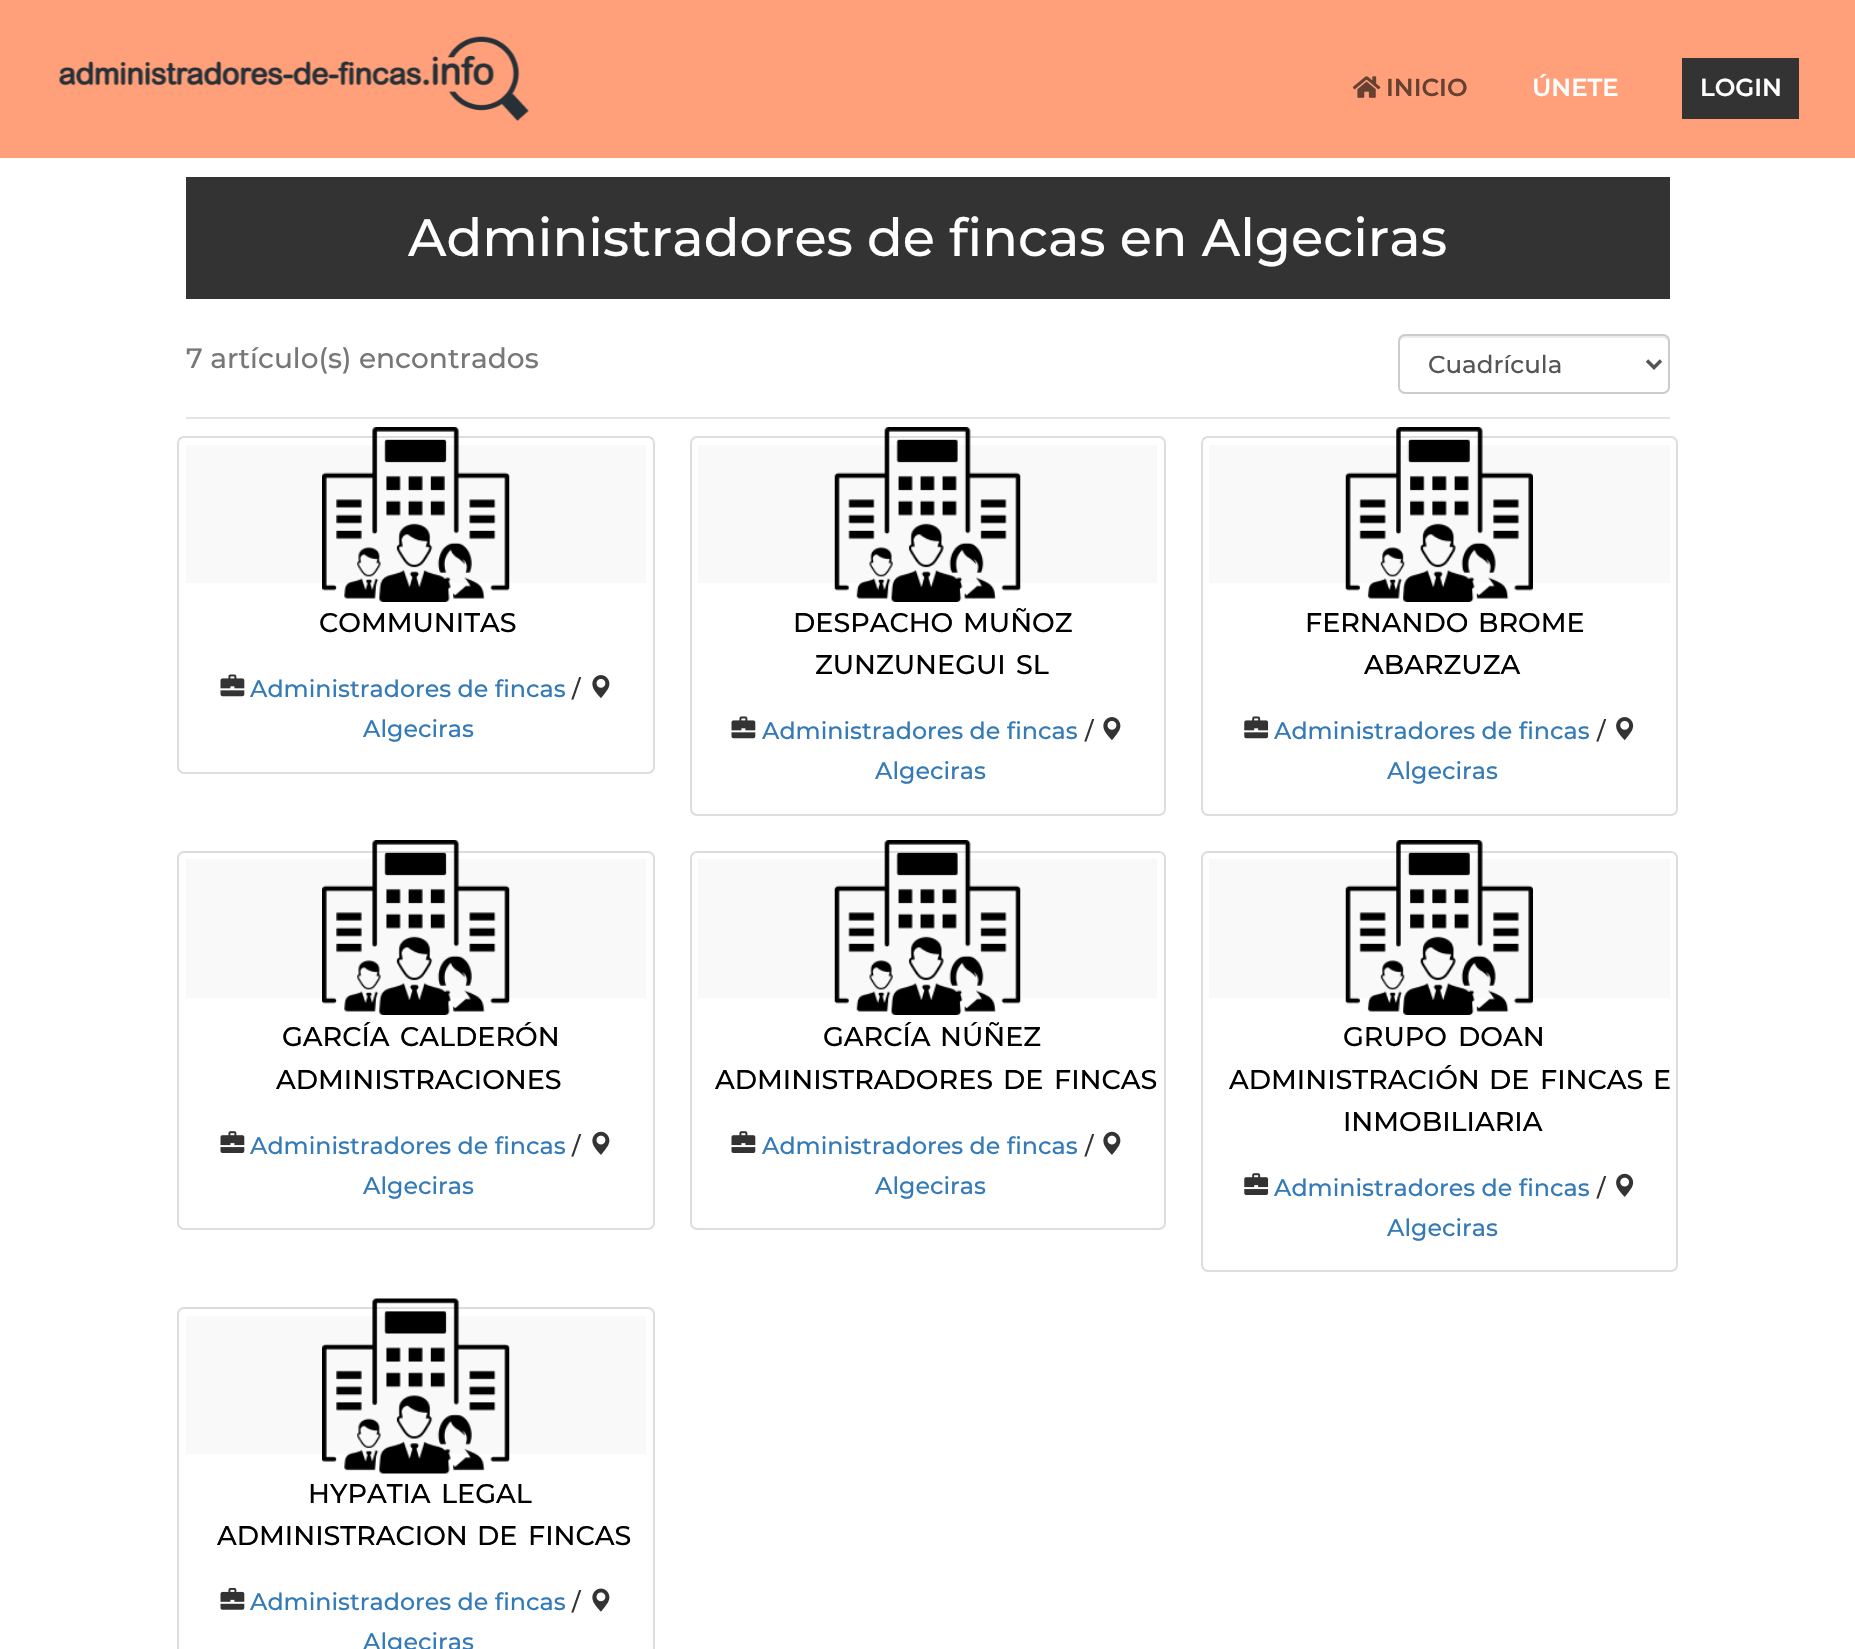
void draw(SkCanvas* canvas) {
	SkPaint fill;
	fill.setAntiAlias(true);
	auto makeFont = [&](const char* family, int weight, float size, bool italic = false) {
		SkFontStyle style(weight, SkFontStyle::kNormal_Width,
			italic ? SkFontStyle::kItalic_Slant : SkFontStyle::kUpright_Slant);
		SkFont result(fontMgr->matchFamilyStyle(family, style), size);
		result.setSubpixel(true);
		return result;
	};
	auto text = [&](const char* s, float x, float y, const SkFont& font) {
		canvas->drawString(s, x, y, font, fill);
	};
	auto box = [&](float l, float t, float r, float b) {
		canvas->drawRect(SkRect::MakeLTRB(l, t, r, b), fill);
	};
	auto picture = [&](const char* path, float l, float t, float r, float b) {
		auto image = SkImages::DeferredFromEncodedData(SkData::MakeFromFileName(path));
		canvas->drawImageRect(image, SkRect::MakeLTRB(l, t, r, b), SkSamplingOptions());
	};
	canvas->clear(0xFFFFFFFF);
	fill.setColor(0xFFFFA07A);
	box(0, 0, 1855, 158);
	picture("image0.png", 59, 36, 529, 121);
	picture("image1.png", 1352, 76, 1381, 98);
	fill.setColor(0xFF333333);
	box(1682, 58, 1799, 119);
	box(186, 177, 1670, 299);
	fill.setColor(0xFFECECEC);
	canvas->drawPath(SkPathBuilder().moveTo(1405, 338).lineTo(1662, 338).cubicTo(1665, 338, 1668, 340, 1668, 343).lineTo(1668, 341).cubicTo(1668, 338, 1666, 336, 1663, 336).lineTo(1405, 336).cubicTo(1402, 336, 1400, 338, 1400, 341).lineTo(1400, 343).cubicTo(1400, 340, 1402, 338, 1405, 338).close().detach(), fill);
	fill.setStyle(SkPaint::kStroke_Style);
	fill.setStrokeWidth(2);
	fill.setColor(0xFFCCCCCC);
	canvas->drawRoundRect(SkRect::MakeLTRB(1399, 335, 1669, 393), 6, 6, fill);
	fill.setStrokeWidth(3.5f);
	fill.setColor(0xFF555555);
	canvas->drawPath(SkPathBuilder().moveTo(1647, 360.5f).lineTo(1654, 367.5f).lineTo(1661, 360.5f).detach(), fill);
	fill.setStyle(SkPaint::kFill_Style);
	fill.setColor(0xFFE5E5E5);
	box(186, 417, 1670, 419);
	fill.setStyle(SkPaint::kStroke_Style);
	fill.setStrokeWidth(2);
	fill.setColor(0xFFDDDDDD);
	canvas->drawRoundRect(SkRect::MakeLTRB(178, 437, 654, 773), 6, 6, fill);
	fill.setStyle(SkPaint::kFill_Style);
	fill.setColor(0xFFF9F9F9);
	box(186, 445, 646, 583);
	picture("image2.png", 322, 427, 510, 602);
	picture("image3.png", 220, 674, 245, 697);
	picture("image4.png", 592, 675, 610, 698);
	fill.setStyle(SkPaint::kStroke_Style);
	fill.setColor(0xFFDDDDDD);
	canvas->drawRoundRect(SkRect::MakeLTRB(691, 437, 1165, 815), 6, 6, fill);
	fill.setStyle(SkPaint::kFill_Style);
	fill.setColor(0xFFF9F9F9);
	box(698, 445, 1157, 583);
	picture("image5.png", 834, 427, 1021, 602);
	picture("image3.png", 731, 716, 756, 739);
	picture("image4.png", 1103, 717, 1121, 740);
	fill.setStyle(SkPaint::kStroke_Style);
	fill.setColor(0xFFDDDDDD);
	canvas->drawRoundRect(SkRect::MakeLTRB(1202, 437, 1677, 815), 6, 6, fill);
	fill.setStyle(SkPaint::kFill_Style);
	fill.setColor(0xFFF9F9F9);
	box(1209, 445, 1670, 583);
	picture("image6.png", 1345, 427, 1533, 602);
	picture("image7.png", 1244, 716, 1269, 739);
	picture("image8.png", 1616, 717, 1634, 741);
	fill.setStyle(SkPaint::kStroke_Style);
	fill.setColor(0xFFDDDDDD);
	canvas->drawRoundRect(SkRect::MakeLTRB(178, 852, 654, 1229), 6, 6, fill);
	fill.setStyle(SkPaint::kFill_Style);
	fill.setColor(0xFFF9F9F9);
	box(186, 859, 646, 998);
	picture("image9.png", 322, 840, 510, 1015);
	picture("image10.png", 220, 1131, 245, 1153);
	picture("image11.png", 592, 1131, 610, 1155);
	fill.setStyle(SkPaint::kStroke_Style);
	fill.setColor(0xFFDDDDDD);
	canvas->drawRoundRect(SkRect::MakeLTRB(691, 852, 1165, 1229), 6, 6, fill);
	fill.setStyle(SkPaint::kFill_Style);
	fill.setColor(0xFFF9F9F9);
	box(698, 859, 1157, 998);
	picture("image12.png", 834, 840, 1021, 1015);
	picture("image10.png", 731, 1131, 756, 1153);
	picture("image11.png", 1103, 1131, 1121, 1155);
	fill.setStyle(SkPaint::kStroke_Style);
	fill.setColor(0xFFDDDDDD);
	canvas->drawRoundRect(SkRect::MakeLTRB(1202, 852, 1677, 1271), 6, 6, fill);
	fill.setStyle(SkPaint::kFill_Style);
	fill.setColor(0xFFF9F9F9);
	box(1209, 859, 1670, 998);
	picture("image13.png", 1345, 840, 1533, 1015);
	picture("image14.png", 1244, 1173, 1269, 1195);
	picture("image15.png", 1616, 1173, 1634, 1197);
	fill.setStyle(SkPaint::kStroke_Style);
	fill.setColor(0xFFDDDDDD);
	canvas->drawRoundRect(SkRect::MakeLTRB(178, 1308, 654, 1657), 6, 6, fill);
	fill.setStyle(SkPaint::kFill_Style);
	fill.setColor(0xFFF9F9F9);
	box(186, 1316, 646, 1454);
	picture("image16.png", 322, 1298, 510, 1474);
	picture("image17.png", 220, 1587, 245, 1610);
	picture("image18.png", 592, 1588, 610, 1612);
	auto font1 = makeFont("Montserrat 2", 100, 24.5f);
	fill.setColor(0xFF664031);
	text("INICIO", 1386, 96, font1);
	fill.setColor(0xFFFFFFFF);
	text("ÚNETE", 1532, 96, font1);
	text("LOGIN", 1700, 96, font1);
	auto font2 = makeFont("Montserrat", 100, 52.5f);
	text("Administradores de fincas en Algeciras", 408, 256, font2);
	auto font3 = makeFont("Montserrat", 100, 28);
	fill.setColor(0xFF777777);
	text("7 artículo(s) encontrados", 186, 368, font3);
	auto font4 = makeFont("Montserrat", 100, 24.5f);
	fill.setColor(0xFF555555);
	text("Cuadrícula", 1428, 373, font4);
	auto font5 = makeFont("Montserrat", 100, 27);
	fill.setColor(0xFF000000);
	text("COMMUNITAS", 319, 632, font5);
	auto font6 = makeFont("Montserrat", 100, 23.75f);
	fill.setColor(0xFF337AB7);
	text("Administradores de fincas", 250, 697, font6);
	fill.setColor(0xFF333333);
	text("/", 572, 697, font6);
	fill.setColor(0xFF337AB7);
	text("Algeciras", 363, 737, font6);
	fill.setColor(0xFF000000);
	text("DESPACHO", 793, 632, font5);
	text("MUÑOZ", 963, 632, font5);
	text("ZUNZUNEGUI", 815, 674, font5);
	text("SL", 1016, 674, font5);
	fill.setColor(0xFF337AB7);
	text("Administradores de fincas", 762, 739, font6);
	fill.setColor(0xFF333333);
	text("/", 1085, 739, font6);
	fill.setColor(0xFF337AB7);
	text("Algeciras", 875, 779, font6);
	fill.setColor(0xFF000000);
	text("FERNANDO", 1305, 632, font5);
	text("BROME", 1478, 632, font5);
	text("ABARZUZA", 1364, 674, font5);
	fill.setColor(0xFF337AB7);
	text("Administradores de fincas", 1274, 739, font6);
	fill.setColor(0xFF333333);
	text("/", 1597, 739, font6);
	fill.setColor(0xFF337AB7);
	text("Algeciras", 1387, 779, font6);
	fill.setColor(0xFF000000);
	text("GARCÍA", 282, 1046, font5);
	text("CALDERÓN", 400, 1046, font5);
	text("ADMINISTRACIONES", 276, 1089, font5);
	fill.setColor(0xFF337AB7);
	text("Administradores de fincas", 250, 1154, font6);
	fill.setColor(0xFF333333);
	text("/", 572, 1154, font6);
	fill.setColor(0xFF337AB7);
	text("Algeciras", 363, 1194, font6);
	fill.setColor(0xFF000000);
	text("GARCÍA", 823, 1046, font5);
	text("NÚÑEZ", 940, 1046, font5);
	text("ADMINISTRADORES", 715, 1089, font5);
	text("DE", 1003, 1089, font5);
	text("FINCAS", 1054, 1089, font5);
	fill.setColor(0xFF337AB7);
	text("Administradores de fincas", 762, 1154, font6);
	fill.setColor(0xFF333333);
	text("/", 1085, 1154, font6);
	fill.setColor(0xFF337AB7);
	text("Algeciras", 875, 1194, font6);
	fill.setColor(0xFF000000);
	text("GRUPO", 1343, 1046, font5);
	text("DOAN", 1458, 1046, font5);
	text("ADMINISTRACIÓN", 1229, 1089, font5);
	text("DE", 1489, 1089, font5);
	text("FINCAS", 1540, 1089, font5);
	text("E", 1653, 1089, font5);
	text("INMOBILIARIA", 1343, 1131, font5);
	fill.setColor(0xFF337AB7);
	text("Administradores de fincas", 1274, 1196, font6);
	fill.setColor(0xFF333333);
	text("/", 1597, 1196, font6);
	fill.setColor(0xFF337AB7);
	text("Algeciras", 1387, 1236, font6);
	fill.setColor(0xFF000000);
	text("HYPATIA", 308, 1503, font5);
	text("LEGAL", 441, 1503, font5);
	text("ADMINISTRACION", 217, 1545, font5);
	text("DE", 477, 1545, font5);
	text("FINCAS", 528, 1545, font5);
	fill.setColor(0xFF337AB7);
	text("Administradores de fincas", 250, 1610, font6);
	fill.setColor(0xFF333333);
	text("/", 572, 1610, font6);
	fill.setColor(0xFF337AB7);
	text("Algeciras", 363, 1650, font6);
}
